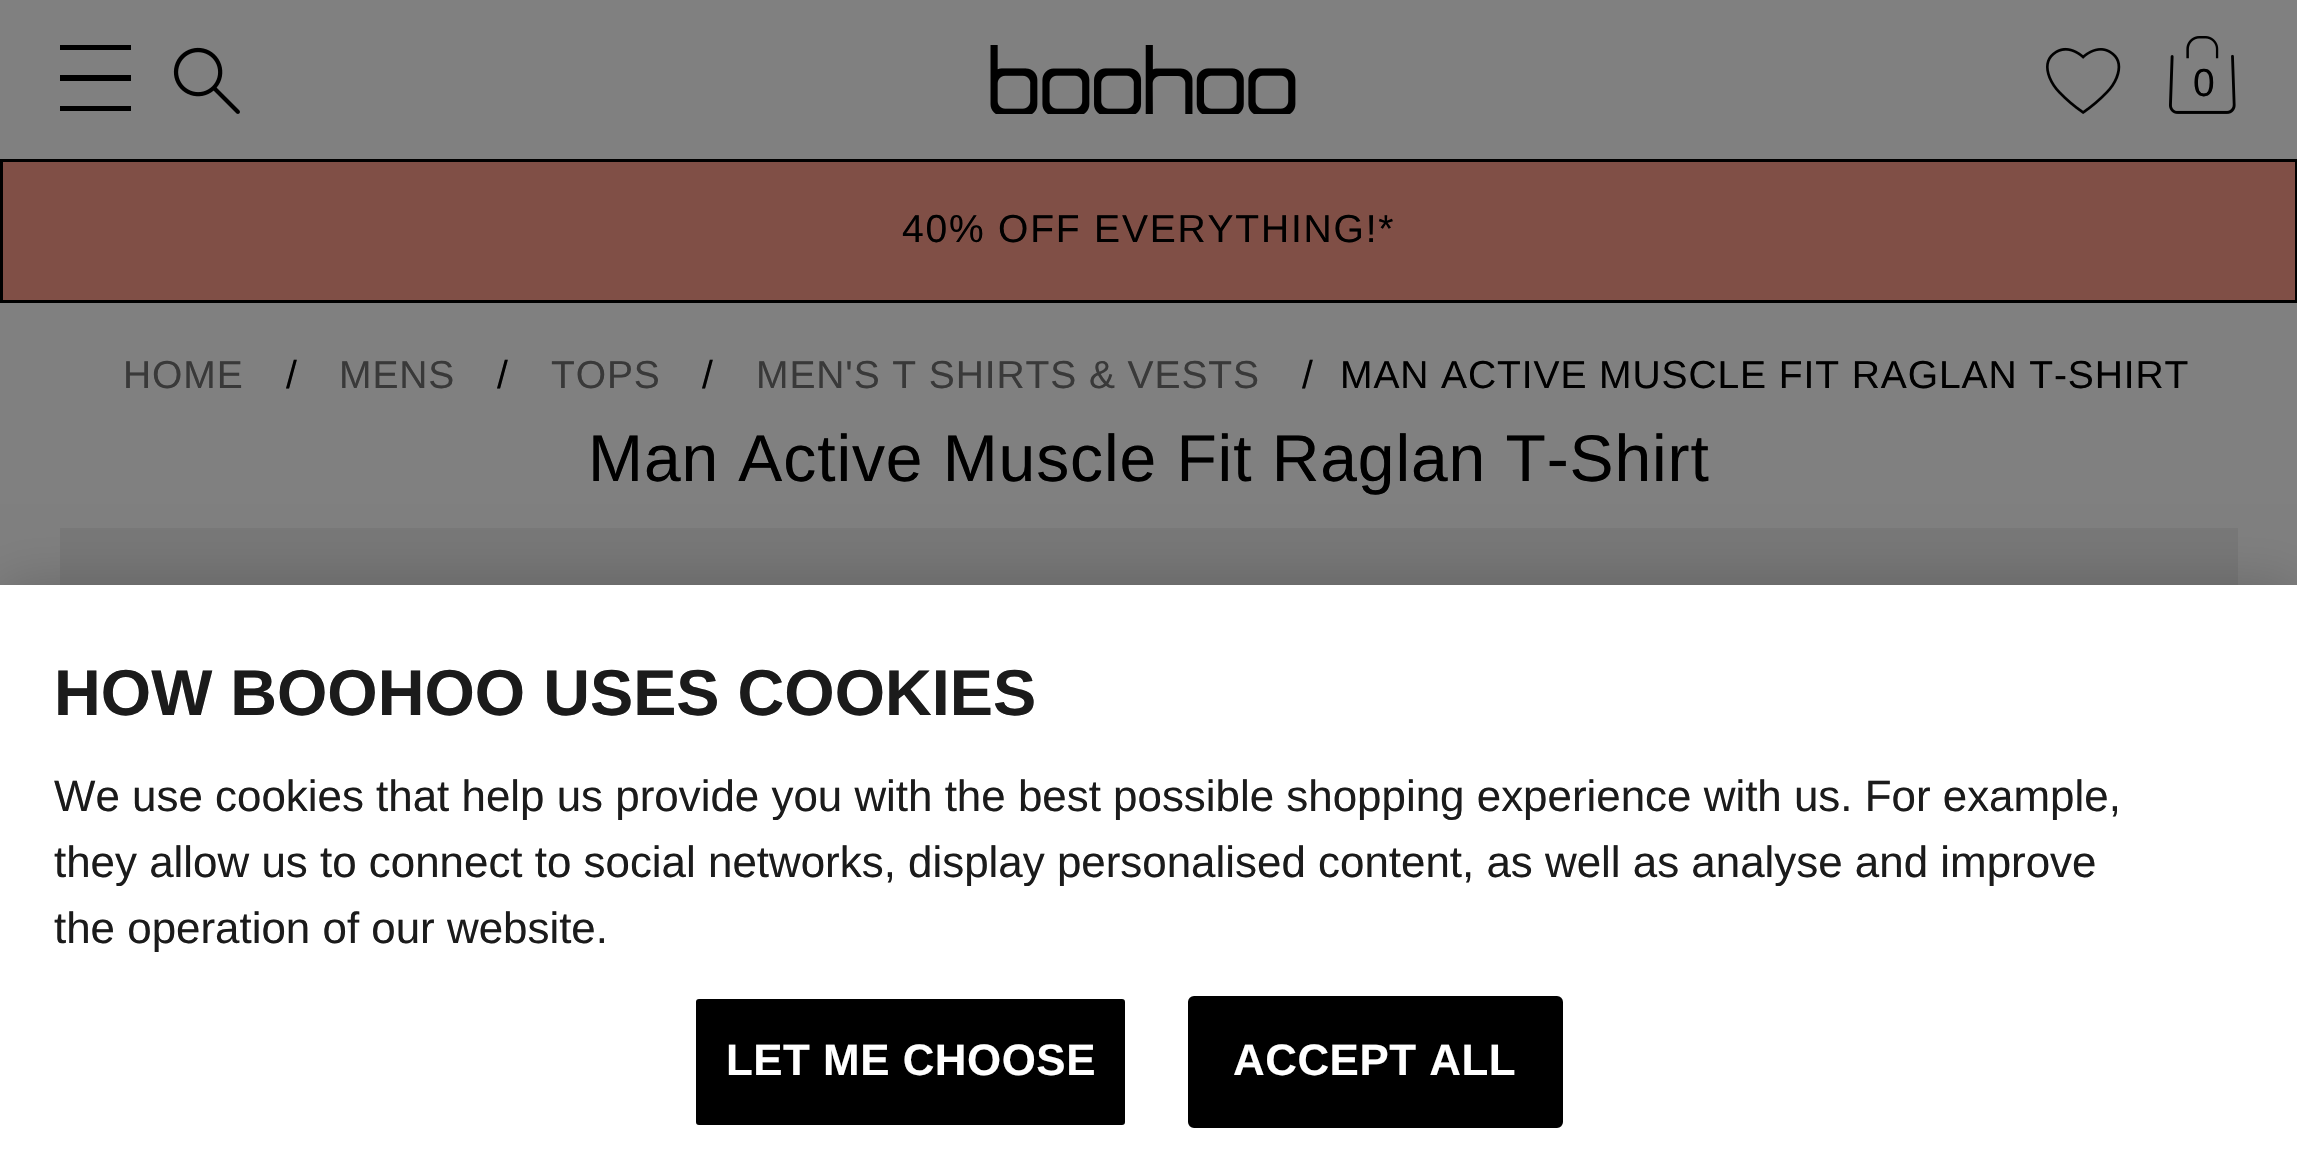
void draw(SkCanvas* canvas) {
	SkPaint fill;
	fill.setAntiAlias(true);
	auto makeFont = [&](const char* family, int weight, float size, bool italic = false) {
		SkFontStyle style(weight, SkFontStyle::kNormal_Width,
			italic ? SkFontStyle::kItalic_Slant : SkFontStyle::kUpright_Slant);
		SkFont result(fontMgr->matchFamilyStyle(family, style), size);
		result.setSubpixel(true);
		return result;
	};
	auto text = [&](const char* s, float x, float y, const SkFont& font) {
		canvas->drawString(s, x, y, font, fill);
	};
	auto spacedText = [&](const char* s, float x, float y, const SkFont& font, const SkPaint& ink, float letter, float word) {
		std::vector<SkGlyphID> glyphs(font.countText(s, strlen(s), SkTextEncoding::kUTF8));
		std::vector<float> xs(glyphs.size());
		font.textToGlyphs(s, strlen(s), SkTextEncoding::kUTF8, glyphs);
		font.getXPos(glyphs, xs, x);
		float extra = 0;
		for (size_t i = 0; i < glyphs.size(); i++) {
			xs[i] += extra;
			extra += letter + word * (glyphs[i] == font.unicharToGlyph(' '));
		}
		canvas->drawTextBlob(SkTextBlob::MakeFromPosHGlyphs(glyphs, xs, y, font), 0, 0, ink);
	};
	auto box = [&](float l, float t, float r, float b) {
		canvas->drawRect(SkRect::MakeLTRB(l, t, r, b), fill);
	};
	auto picture = [&](const char* path, float l, float t, float r, float b) {
		auto image = SkImages::DeferredFromEncodedData(SkData::MakeFromFileName(path));
		canvas->drawImageRect(image, SkRect::MakeLTRB(l, t, r, b), SkSamplingOptions());
	};
	canvas->clear(0xFF808080);
	fill.setColor(0xFF000000);
	canvas->drawPath(SkPathBuilder().moveTo(60, 45).lineTo(60, 50).lineTo(131, 50).lineTo(131, 45).close().moveTo(60, 81).lineTo(131, 81).lineTo(131, 75).lineTo(60, 75).close().moveTo(60, 111).lineTo(131, 111).lineTo(131, 106).lineTo(60, 106).close().detach(), fill);
	picture("image0.png", 173, 47, 240, 114);
	picture("image1.png", 990, 45, 1296, 114);
	picture("image2.png", 2046, 47, 2121, 114);
	picture("image3.png", 2169, 36, 2236, 114);
	fill.setColor(0xFF804F46);
	canvas->drawRect(SkRect::MakeLTRB(1.5f, 160.5f, 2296.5f, 301.5f), fill);
	fill.setStyle(SkPaint::kStroke_Style);
	fill.setStrokeWidth(3);
	fill.setColor(0xFF000000);
	canvas->drawRect(SkRect::MakeLTRB(1.5f, 160.5f, 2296.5f, 301.5f), fill);
	fill.setStyle(SkPaint::kFill_Style);
	fill.setColor(0xFF787878);
	box(60, 528, 2238, 585);
	fill.setColor(0x33000000);
	fill.setMaskFilter(SkMaskFilter::MakeBlur(kNormal_SkBlurStyle, 27));
	canvas->drawRect(SkRect::MakeLTRB(0, 585, 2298, 1176), fill);
	fill.setMaskFilter(nullptr);
	fill.setColor(0xFFFFFFFF);
	box(0, 585, 2297, 1176);
	fill.setColor(0xFF000000);
	canvas->drawRoundRect(SkRect::MakeLTRB(694.5f, 997.5f, 1126.5f, 1126.5f), 4.5f, 4.5f, fill);
	fill.setStyle(SkPaint::kStroke_Style);
	fill.setColor(0xFFFFFFFF);
	canvas->drawRoundRect(SkRect::MakeLTRB(694.5f, 997.5f, 1126.5f, 1126.5f), 4.5f, 4.5f, fill);
	fill.setStyle(SkPaint::kFill_Style);
	fill.setColor(0xFF000000);
	canvas->drawRoundRect(SkRect::MakeLTRB(1189.5f, 997.5f, 1561.5f, 1126.5f), 4.5f, 4.5f, fill);
	fill.setStyle(SkPaint::kStroke_Style);
	canvas->drawRoundRect(SkRect::MakeLTRB(1189.5f, 997.5f, 1561.5f, 1126.5f), 4.5f, 4.5f, fill);
	auto font1 = makeFont("Liberation Sans", 400, 39);
	fill.setStyle(SkPaint::kFill_Style);
	spacedText("0", 2193, 96, font1, fill, 0.9f, 0);
	spacedText("40% OFF EVERYTHING!*", 902, 242, font1, fill, 1.8f, 0);
	fill.setColor(0xFF393939);
	spacedText("HOME", 123, 388, font1, fill, 0.9f, 0);
	fill.setColor(0xFF000000);
	spacedText("/", 286, 388, font1, fill, 0.9f, 0);
	fill.setColor(0xFF393939);
	spacedText("MENS", 339, 388, font1, fill, 0.9f, 0);
	fill.setColor(0xFF000000);
	spacedText("/", 497, 388, font1, fill, 0.9f, 0);
	fill.setColor(0xFF393939);
	spacedText("TOPS", 551, 388, font1, fill, 0.9f, 0);
	fill.setColor(0xFF000000);
	spacedText("/", 702, 388, font1, fill, 0.9f, 0);
	fill.setColor(0xFF393939);
	spacedText("MEN'S T SHIRTS & VESTS", 756, 388, font1, fill, 0.9f, 0);
	fill.setColor(0xFF000000);
	spacedText("/", 1302, 388, font1, fill, 0.9f, 0);
	spacedText("MAN ACTIVE MUSCLE FIT RAGLAN T-SHIRT", 1340, 388, font1, fill, 0.9f, 0);
	auto font2 = makeFont("Liberation Sans", 400, 66);
	spacedText("Man Active Muscle Fit Raglan T-Shirt", 588, 481, font2, fill, 0.9f, 0);
	auto font3 = makeFont("Liberation Sans", 700, 64.75f);
	fill.setColor(0xFF1B1B1B);
	text("HOW BOOHOO USES COOKIES", 54, 715, font3);
	auto font4 = makeFont("Liberation Sans", 400, 43.9f);
	text("We use cookies that help us provide you with the best possible shopping experience with us. For example,", 54, 811, font4);
	text("they allow us to connect to social networks, display personalised content, as well as analyse and improve", 54, 877, font4);
	text("the operation of our website.", 54, 943, font4);
	auto font5 = makeFont("Liberation Sans", 700, 43.9f);
	fill.setColor(0xFFFFFFFF);
	spacedText("LET ME CHOOSE", 726, 1075, font5, fill, 0.5f, 0);
	spacedText("ACCEPT ALL", 1233, 1075, font5, fill, 0.5f, 0);
}
